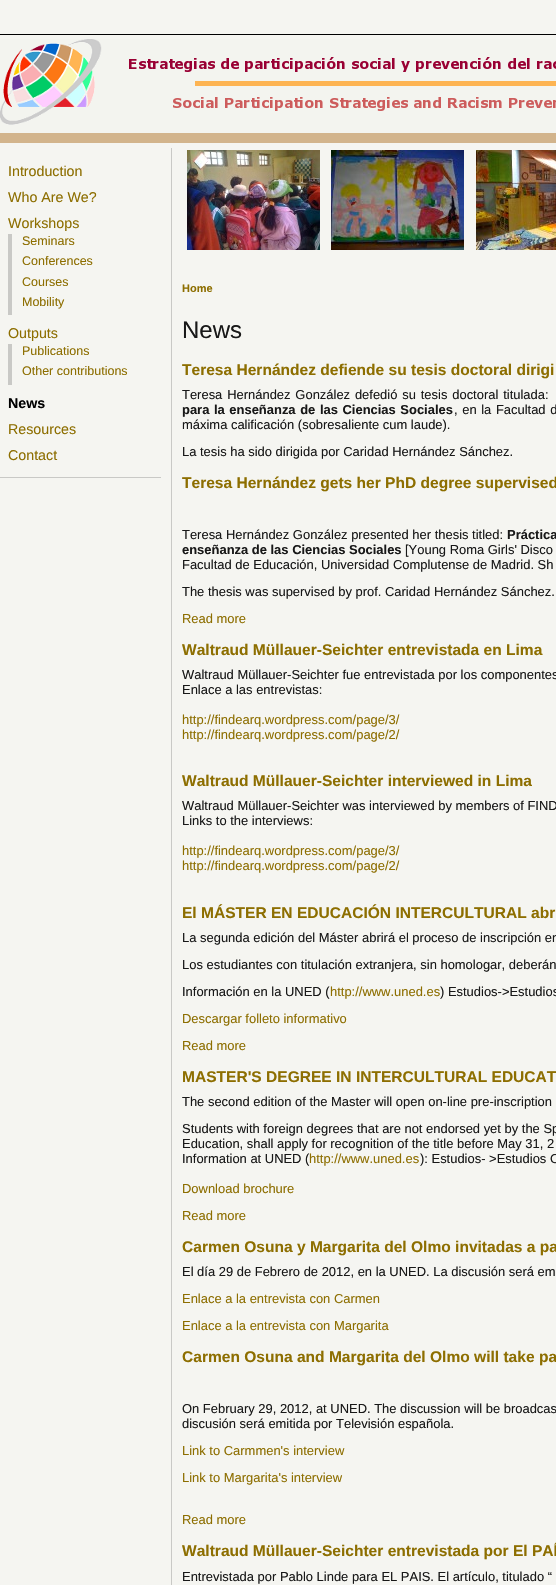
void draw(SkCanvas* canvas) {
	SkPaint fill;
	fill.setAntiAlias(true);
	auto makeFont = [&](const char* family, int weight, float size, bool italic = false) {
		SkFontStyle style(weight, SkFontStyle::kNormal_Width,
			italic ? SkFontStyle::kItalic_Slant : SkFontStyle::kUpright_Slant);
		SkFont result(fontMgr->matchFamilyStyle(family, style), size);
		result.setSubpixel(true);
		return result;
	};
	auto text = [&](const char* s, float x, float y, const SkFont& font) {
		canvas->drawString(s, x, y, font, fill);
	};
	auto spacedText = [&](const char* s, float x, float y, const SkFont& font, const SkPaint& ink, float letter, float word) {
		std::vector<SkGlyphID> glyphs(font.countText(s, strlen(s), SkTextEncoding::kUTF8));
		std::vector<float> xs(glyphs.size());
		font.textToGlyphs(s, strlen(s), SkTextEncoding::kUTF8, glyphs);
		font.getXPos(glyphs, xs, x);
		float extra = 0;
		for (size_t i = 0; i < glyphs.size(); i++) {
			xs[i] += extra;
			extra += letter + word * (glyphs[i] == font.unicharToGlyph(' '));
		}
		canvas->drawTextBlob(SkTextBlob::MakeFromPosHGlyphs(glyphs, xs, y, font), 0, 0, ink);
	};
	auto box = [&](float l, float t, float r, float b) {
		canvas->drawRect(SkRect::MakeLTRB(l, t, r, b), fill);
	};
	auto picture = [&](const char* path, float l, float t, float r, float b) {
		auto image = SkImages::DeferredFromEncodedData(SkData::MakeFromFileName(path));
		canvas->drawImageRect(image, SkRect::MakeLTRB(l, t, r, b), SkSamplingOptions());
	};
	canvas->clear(0xFFF5F5F1);
	fill.setColor(0xFF000000);
	box(0, 34, 556, 35);
	picture("image0.png", 0, 39, 556, 143);
	fill.setColor(0xFFC9C9C6);
	box(0, 477, 161, 478);
	box(8, 234, 12, 315);
	box(8, 344, 12, 385);
	box(171, 148, 172, 1585);
	picture("image1.png", 187, 150, 320, 250);
	picture("image2.png", 331, 150, 464, 250);
	picture("image3.png", 476, 150, 556, 250);
	auto font1 = makeFont("Liberation Sans", 400, 14.25f);
	fill.setColor(0xFF8D6E00);
	text("Introduction", 8, 176, font1);
	text("Who Are We?", 8, 202, font1);
	text("Workshops", 8, 228, font1);
	auto font2 = makeFont("Liberation Sans", 400, 12.5f);
	text("Seminars", 22, 245, font2);
	text("Conferences", 22, 265, font2);
	text("Courses", 22, 286, font2);
	text("Mobility", 22, 306, font2);
	text("Outputs", 8, 338, font1);
	text("Publications", 22, 355, font2);
	text("Other contributions", 22, 375, font2);
	auto font3 = makeFont("Liberation Sans", 700, 14.25f);
	fill.setColor(0xFF000000);
	text("News", 8, 408, font3);
	fill.setColor(0xFF8D6E00);
	text("Resources", 8, 434, font1);
	text("Contact", 8, 460, font1);
	auto font4 = makeFont("Liberation Sans", 700, 11);
	text("Home", 182, 292, font4);
	auto font5 = makeFont("Liberation Sans", 400, 24);
	fill.setColor(0xFF181818);
	text("News", 182, 338, font5);
	auto font6 = makeFont("Liberation Sans", 700, 15.55f);
	fill.setColor(0xFF8D6E00);
	text("Teresa Hernández defiende su tesis doctoral dirigi", 182, 375, font6);
	auto font7 = makeFont("Liberation Sans", 400, 12.95f);
	fill.setColor(0xFF181818);
	spacedText("Teresa Hernández González defedió su tesis doctoral titulada:", 182, 399, font7, fill, 0, 1.25f);
	auto font8 = makeFont("Liberation Sans", 700, 12.95f);
	spacedText("para la enseñanza de las Ciencias Sociales", 182, 414, font8, fill, 0, 1);
	spacedText(", en la Facultad d", 454, 414, font7, fill, 0, 1);
	text("máxima calificación (sobresaliente cum laude).", 182, 429, font7);
	text("La tesis ha sido dirigida por Caridad Hernández Sánchez.", 182, 456, font7);
	fill.setColor(0xFF8D6E00);
	text("Teresa Hernández gets her PhD degree supervised", 182, 488, font6);
	fill.setColor(0xFF181818);
	text("Teresa Hernández González presented her thesis titled:", 182, 539, font7);
	text("Práctica", 507, 539, font8);
	text("enseñanza de las Ciencias Sociales", 182, 554, font8);
	text("[Young Roma Girls' Disco", 405, 554, font7);
	text("Facultad de Educación, Universidad Complutense de Madrid. Sh", 182, 569, font7);
	text("The thesis was supervised by prof. Caridad Hernández Sánchez.", 182, 596, font7);
	fill.setColor(0xFF8D6E00);
	text("Read more", 182, 623, font7);
	text("Waltraud Müllauer-Seichter entrevistada en Lima", 182, 655, font6);
	fill.setColor(0xFF181818);
	text("Waltraud Müllauer-Seichter fue entrevistada por los componentes", 182, 679, font7);
	text("Enlace a las entrevistas:", 182, 694, font7);
	fill.setColor(0xFF8D6E00);
	text("http://findearq.wordpress.com/page/3/", 182, 724, font7);
	text("http://findearq.wordpress.com/page/2/", 182, 739, font7);
	text("Waltraud Müllauer-Seichter interviewed in Lima", 182, 786, font6);
	fill.setColor(0xFF181818);
	text("Waltraud Müllauer-Seichter was interviewed by members of FIND", 182, 810, font7);
	text("Links to the interviews:", 182, 825, font7);
	fill.setColor(0xFF8D6E00);
	text("http://findearq.wordpress.com/page/3/", 182, 855, font7);
	text("http://findearq.wordpress.com/page/2/", 182, 870, font7);
	text("El MÁSTER EN EDUCACIÓN INTERCULTURAL abr", 182, 918, font6);
	fill.setColor(0xFF181818);
	text("La segunda edición del Máster abrirá el proceso de inscripción en", 182, 942, font7);
	text("Los estudiantes con titulación extranjera, sin homologar, deberán", 182, 969, font7);
	text("Información en la UNED (", 182, 996, font7);
	fill.setColor(0xFF8D6E00);
	text("http://www.uned.es", 330, 996, font7);
	fill.setColor(0xFF181818);
	text(") Estudios‐>Estudios", 440, 996, font7);
	fill.setColor(0xFF8D6E00);
	text("Descargar folleto informativo", 182, 1023, font7);
	text("Read more", 182, 1050, font7);
	text("MASTER'S DEGREE IN INTERCULTURAL EDUCAT", 182, 1082, font6);
	fill.setColor(0xFF181818);
	text("The second edition of the Master will open on-line pre-inscription", 182, 1106, font7);
	text("Students with foreign degrees that are not endorsed yet by the Sp", 182, 1133, font7);
	text("Education, shall apply for recognition of the title before May 31, 2", 182, 1148, font7);
	text("Information at UNED (", 182, 1163, font7);
	fill.setColor(0xFF8D6E00);
	text("http://www.uned.es", 309, 1163, font7);
	fill.setColor(0xFF181818);
	text("): Estudios‐ >Estudios O", 420, 1163, font7);
	fill.setColor(0xFF8D6E00);
	text("Download brochure", 182, 1193, font7);
	text("Read more", 182, 1220, font7);
	text("Carmen Osuna y Margarita del Olmo invitadas a pa", 182, 1252, font6);
	fill.setColor(0xFF181818);
	text("El día 29 de Febrero de 2012, en la UNED. La discusión será em", 182, 1276, font7);
	fill.setColor(0xFF8D6E00);
	text("Enlace a la entrevista con Carmen", 182, 1303, font7);
	text("Enlace a la entrevista con Margarita", 182, 1330, font7);
	text("Carmen Osuna and Margarita del Olmo will take pa", 182, 1362, font6);
	fill.setColor(0xFF181818);
	text("On February 29, 2012, at UNED. The discussion will be broadcas", 182, 1413, font7);
	text("discusión será emitida por Televisión española.", 182, 1428, font7);
	fill.setColor(0xFF8D6E00);
	text("Link to Carmmen's interview", 182, 1455, font7);
	text("Link to Margarita's interview", 182, 1482, font7);
	text("Read more", 182, 1524, font7);
	text("Waltraud Müllauer-Seichter entrevistada por El PAÍ", 182, 1556, font6);
	fill.setColor(0xFF181818);
	text("Entrevistada por Pablo Linde para EL PAIS. El artículo, titulado “", 182, 1581, font7);
}
